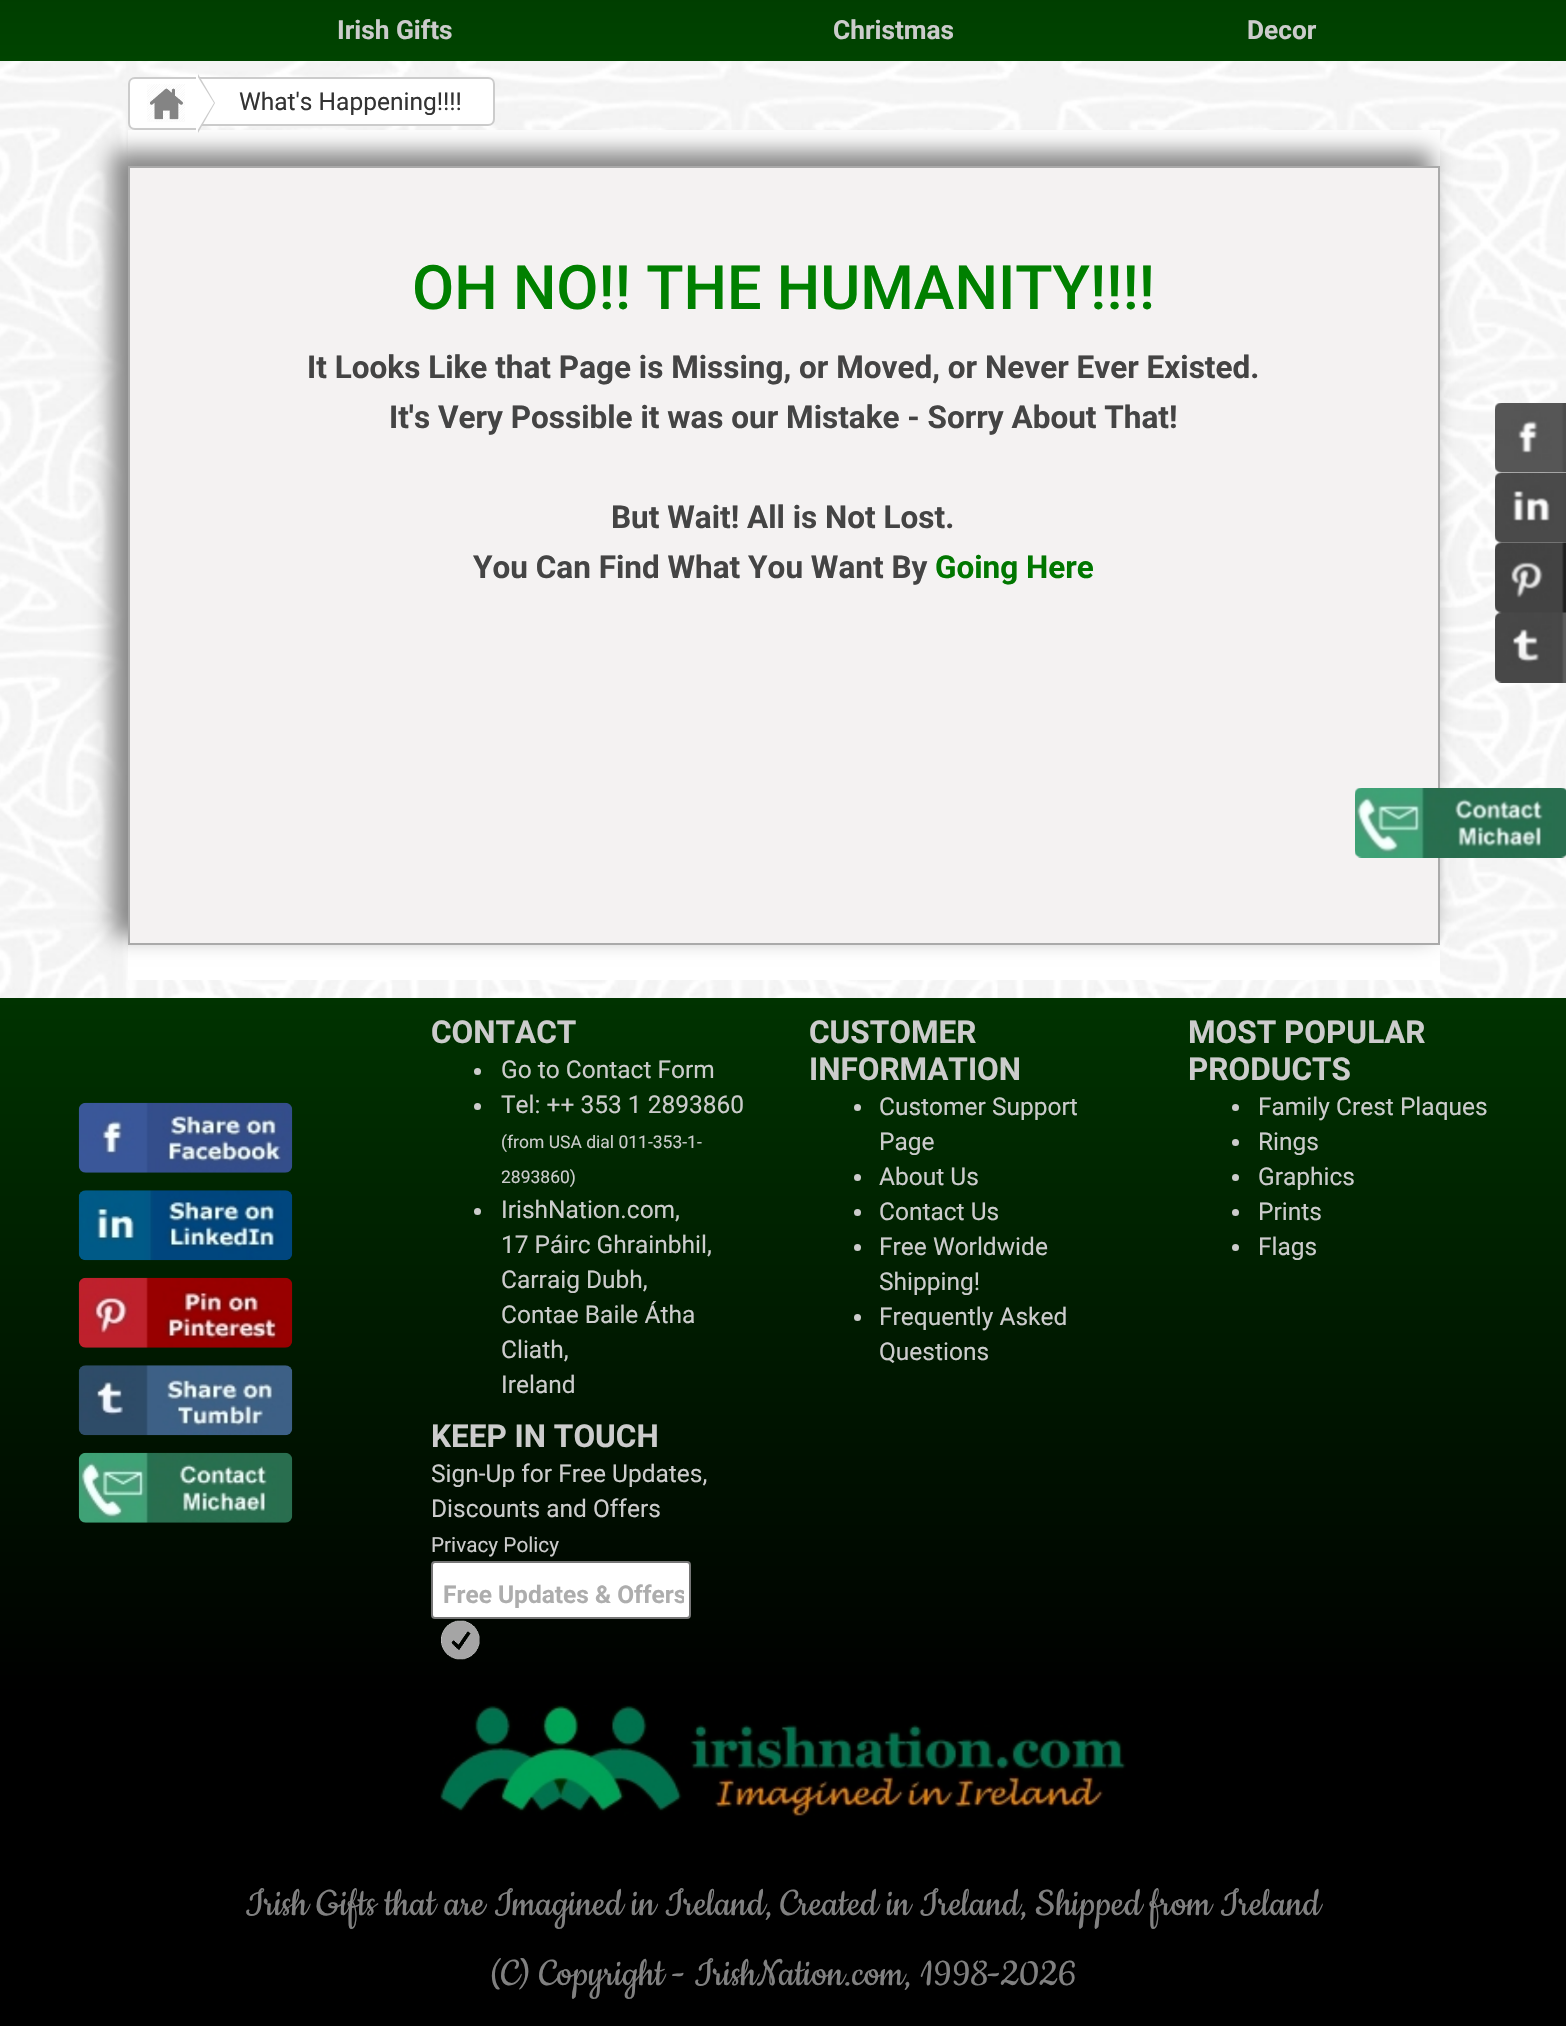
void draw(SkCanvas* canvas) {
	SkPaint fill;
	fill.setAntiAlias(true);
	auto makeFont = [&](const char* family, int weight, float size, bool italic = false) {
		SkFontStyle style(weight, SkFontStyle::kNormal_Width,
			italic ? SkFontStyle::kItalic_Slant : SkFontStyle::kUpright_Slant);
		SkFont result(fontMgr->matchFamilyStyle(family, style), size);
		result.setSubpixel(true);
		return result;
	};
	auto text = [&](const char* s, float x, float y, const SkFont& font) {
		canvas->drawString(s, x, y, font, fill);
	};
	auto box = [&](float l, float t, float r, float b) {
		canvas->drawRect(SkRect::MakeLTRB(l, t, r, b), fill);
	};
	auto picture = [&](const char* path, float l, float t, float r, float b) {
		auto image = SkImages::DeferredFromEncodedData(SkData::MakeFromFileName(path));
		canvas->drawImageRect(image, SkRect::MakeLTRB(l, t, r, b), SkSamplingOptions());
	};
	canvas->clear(0xFFFFFFFF);
	picture("image0.png", 0, 61, 1566, 998);
	{
		const SkColor colors[] = {0xFF002200, 0xFF004400};
		const float stops[] = {0, 1};
		const SkPoint ends[] = {{783, -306}, {783, 61}};
		fill.setShader(SkGradientShader::MakeLinear(ends, colors, stops, 2, SkTileMode::kClamp));
		fill.setAlpha(255);
	}
	box(0, 0, 1566, 61);
	fill.setShader(nullptr);
	fill.setColor(0xFFFFFFFF);
	canvas->drawPath(SkPathBuilder().moveTo(135, 78).lineTo(197, 78).lineTo(197, 129).lineTo(135, 129).cubicTo(131.5f, 129, 129, 126.5f, 129, 123).lineTo(129, 84).cubicTo(129, 80.5f, 131.5f, 78, 135, 78).close().detach(), fill);
	fill.setStyle(SkPaint::kStroke_Style);
	fill.setStrokeWidth(2);
	fill.setColor(0xFFCCCCCC);
	canvas->drawPath(SkPathBuilder().moveTo(135, 78).lineTo(197, 78).lineTo(197, 129).lineTo(135, 129).cubicTo(131.5f, 129, 129, 126.5f, 129, 123).lineTo(129, 84).cubicTo(129, 80.5f, 131.5f, 78, 135, 78).close().detach(), fill);
	fill.setStyle(SkPaint::kFill_Style);
	fill.setColor(0xFFFFFFFF);
	canvas->drawPath(SkPathBuilder().moveTo(197, 78).lineTo(488, 78).cubicTo(491.5f, 78, 494, 80.5f, 494, 84).lineTo(494, 119).cubicTo(494, 122.5f, 491.5f, 125, 488, 125).lineTo(197, 125).close().detach(), fill);
	fill.setStyle(SkPaint::kStroke_Style);
	fill.setColor(0xFFCCCCCC);
	canvas->drawPath(SkPathBuilder().moveTo(197, 78).lineTo(488, 78).cubicTo(491.5f, 78, 494, 80.5f, 494, 84).lineTo(494, 119).cubicTo(494, 122.5f, 491.5f, 125, 488, 125).lineTo(197, 125).close().detach(), fill);
	fill.setStyle(SkPaint::kFill_Style);
	fill.setColor(0xFFFFFFFF);
	box(128, 130, 1440, 980);
	picture("image1.png", 147, 84, 185, 122);
	fill.setColor(0xFF888888);
	fill.setMaskFilter(SkMaskFilter::MakeBlur(kNormal_SkBlurStyle, 10.5f));
	canvas->drawRect(SkRect::MakeLTRB(112, 151, 1432, 936), fill);
	fill.setMaskFilter(nullptr);
	fill.setColor(0xFFCCCCCC);
	canvas->drawPath(SkPathBuilder().moveTo(198, 133).lineTo(198, 74).lineTo(215, 103).close().detach(), fill);
	fill.setColor(0xFFFFFFFF);
	canvas->drawPath(SkPathBuilder().moveTo(196, 133).lineTo(196, 74).lineTo(214, 103).close().detach(), fill);
	fill.setColor(0xFFF4F2F2);
	canvas->drawRect(SkRect::MakeLTRB(129, 167, 1439, 944), fill);
	fill.setStyle(SkPaint::kStroke_Style);
	fill.setColor(0xFFAAAAAA);
	canvas->drawRect(SkRect::MakeLTRB(129, 167, 1439, 944), fill);
	picture("image2.png", 1495, 403, 1566, 473);
	picture("image3.png", 1495, 473, 1566, 543);
	picture("image4.png", 1495, 542, 1566, 613);
	picture("image5.png", 1495, 612, 1566, 683);
	picture("image6.png", 1355, 788, 1566, 858);
	fill.setStyle(SkPaint::kFill_Style);
	{
		const SkColor colors[] = {0xFF003300, 0xFF000000};
		const float stops[] = {0, 1};
		const SkPoint ends[] = {{783, 998}, {783, 1696}};
		fill.setShader(SkGradientShader::MakeLinear(ends, colors, stops, 2, SkTileMode::kClamp));
		fill.setAlpha(255);
	}
	box(0, 998, 1566, 1696);
	picture("image7.png", 78, 1102, 293, 1173);
	picture("image8.png", 78, 1190, 293, 1261);
	picture("image9.png", 78, 1277, 293, 1348);
	picture("image10.png", 78, 1365, 293, 1436);
	picture("image11.png", 78, 1452, 293, 1523);
	fill.setShader(nullptr);
	fill.setColor(0xFFCCCCCC);
	canvas->drawCircle(477.5f, 1071.5f, 3.5f, fill);
	canvas->drawCircle(477.5f, 1106.5f, 3.5f, fill);
	canvas->drawCircle(477.5f, 1211.5f, 3.5f, fill);
	fill.setColor(0xFFFFFFFF);
	canvas->drawRoundRect(SkRect::MakeLTRB(432, 1562, 690, 1618), 3, 3, fill);
	fill.setStyle(SkPaint::kStroke_Style);
	fill.setColor(0xFF767676);
	canvas->drawRoundRect(SkRect::MakeLTRB(432, 1562, 690, 1618), 3, 3, fill);
	picture("image12.png", 441, 1620, 480, 1660);
	fill.setStyle(SkPaint::kFill_Style);
	fill.setColor(0xFFCCCCCC);
	canvas->drawCircle(857.5f, 1107.5f, 3.5f, fill);
	canvas->drawCircle(857.5f, 1177.5f, 3.5f, fill);
	canvas->drawCircle(857.5f, 1212.5f, 3.5f, fill);
	canvas->drawCircle(857.5f, 1247.5f, 3.5f, fill);
	canvas->drawCircle(857.5f, 1317.5f, 3.5f, fill);
	canvas->drawCircle(1235.5f, 1107.5f, 3.5f, fill);
	canvas->drawCircle(1235.5f, 1142.5f, 3.5f, fill);
	canvas->drawCircle(1235.5f, 1177.5f, 3.5f, fill);
	canvas->drawCircle(1235.5f, 1212.5f, 3.5f, fill);
	canvas->drawCircle(1235.5f, 1247.5f, 3.5f, fill);
	fill.setColor(0xFF000000);
	box(0, 1696, 1566, 2026);
	picture("image13.png", 440, 1705, 1126, 1817);
	auto font1 = makeFont("Roboto", 700, 26.25f);
	fill.setColor(0xFFCCCCCC);
	text("Irish Gifts", 337, 39, font1);
	text("Christmas", 833, 39, font1);
	text("Decor", 1247, 39, font1);
	auto font2 = makeFont("Roboto", 400, 24.5f);
	fill.setColor(0xFF333333);
	text("What's Happening!!!!", 239, 110, font2);
	auto font3 = makeFont("Roboto", 500, 61.25f);
	fill.setColor(0xFF008000);
	text("OH NO!! THE HUMANITY!!!!", 412, 309, font3);
	auto font4 = makeFont("Roboto", 700, 31.5f);
	fill.setColor(0xFF444444);
	text("It Looks Like that Page is Missing, or Moved, or Never Ever Existed.", 307, 378, font4);
	text("It's Very Possible it was our Mistake - Sorry About That!", 389, 428, font4);
	text("But Wait! All is Not Lost.", 611, 528, font4);
	text("You Can Find What You Want By", 473, 578, font4);
	fill.setColor(0xFF007700);
	text("Going Here", 935, 578, font4);
	fill.setColor(0xFFCCCCCC);
	text("CONTACT", 431, 1043, font4);
	text("Go to Contact Form", 501, 1078, font2);
	text("Tel: ++ 353 1 2893860", 501, 1113, font2);
	auto font5 = makeFont("Roboto", 400, 17.5f);
	text("(from USA dial 011-353-1-", 501, 1148, font5);
	text("2893860)", 501, 1183, font5);
	text("IrishNation.com,", 501, 1218, font2);
	text("17 Páirc Ghrainbhil,", 501, 1253, font2);
	text("Carraig Dubh,", 501, 1288, font2);
	text("Contae Baile Átha", 501, 1323, font2);
	text("Cliath,", 501, 1358, font2);
	text("Ireland", 501, 1393, font2);
	text("KEEP IN TOUCH", 431, 1447, font4);
	text("Sign-Up for Free Updates,", 431, 1482, font2);
	text("Discounts and Offers", 431, 1517, font2);
	auto font6 = makeFont("Roboto", 400, 20.75f);
	text("Privacy Policy", 431, 1552, font6);
	canvas->save();
	canvas->clipRect(SkRect::MakeLTRB(443, 1580, 684, 1608));
	auto font7 = makeFont("Roboto", 700, 24.5f);
	fill.setColor(0xFFADADAD);
	text("Free Updates & Offers", 443, 1603, font7);
	canvas->restore();
	fill.setColor(0xFFCCCCCC);
	text("CUSTOMER", 809, 1043, font4);
	text("INFORMATION", 809, 1080, font4);
	text("Customer Support", 879, 1115, font2);
	text("Page", 879, 1150, font2);
	text("About Us", 879, 1185, font2);
	text("Contact Us", 879, 1220, font2);
	text("Free Worldwide", 879, 1255, font2);
	text("Shipping!", 879, 1290, font2);
	text("Frequently Asked", 879, 1325, font2);
	text("Questions", 879, 1360, font2);
	text("MOST POPULAR", 1188, 1043, font4);
	text("PRODUCTS", 1188, 1080, font4);
	text("Family Crest Plaques", 1258, 1115, font2);
	text("Rings", 1258, 1150, font2);
	text("Graphics", 1258, 1185, font2);
	text("Prints", 1258, 1220, font2);
	text("Flags", 1258, 1255, font2);
	auto font8 = makeFont("Cookie", 400, 43.75f);
	fill.setColor(0xFF808080);
	text("Irish Gifts that are Imagined in Ireland, Created in Ireland, Shipped from Ireland", 245, 1915, font8);
	text("(C) Copyright - IrishNation.com, 1998-2026", 489, 1985, font8);
}
